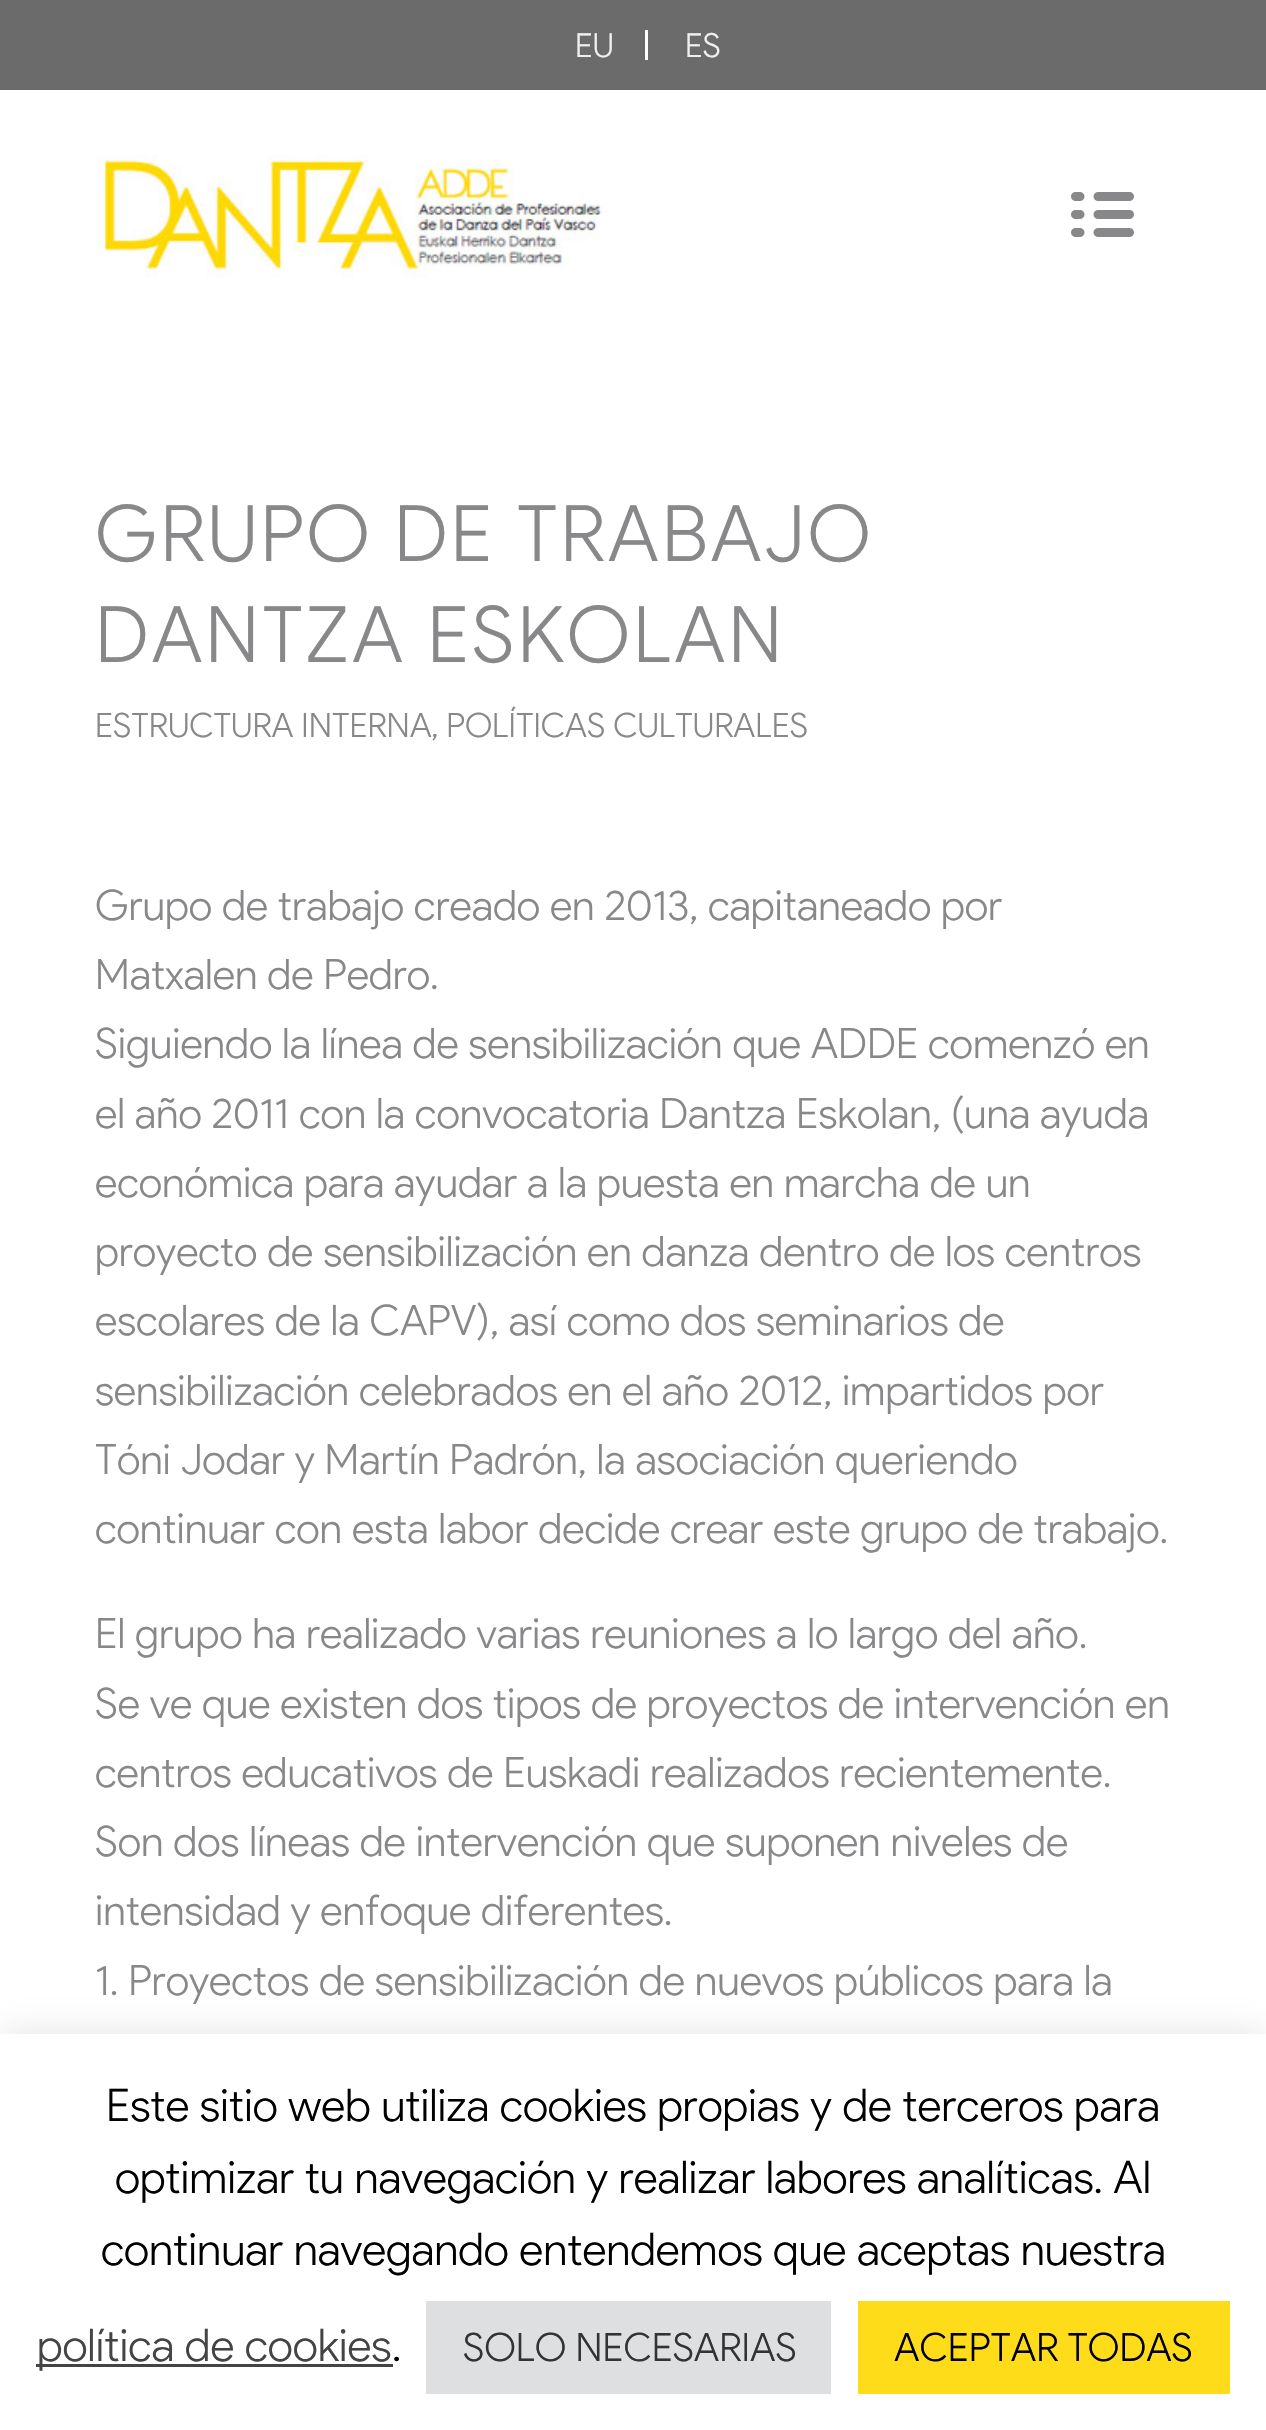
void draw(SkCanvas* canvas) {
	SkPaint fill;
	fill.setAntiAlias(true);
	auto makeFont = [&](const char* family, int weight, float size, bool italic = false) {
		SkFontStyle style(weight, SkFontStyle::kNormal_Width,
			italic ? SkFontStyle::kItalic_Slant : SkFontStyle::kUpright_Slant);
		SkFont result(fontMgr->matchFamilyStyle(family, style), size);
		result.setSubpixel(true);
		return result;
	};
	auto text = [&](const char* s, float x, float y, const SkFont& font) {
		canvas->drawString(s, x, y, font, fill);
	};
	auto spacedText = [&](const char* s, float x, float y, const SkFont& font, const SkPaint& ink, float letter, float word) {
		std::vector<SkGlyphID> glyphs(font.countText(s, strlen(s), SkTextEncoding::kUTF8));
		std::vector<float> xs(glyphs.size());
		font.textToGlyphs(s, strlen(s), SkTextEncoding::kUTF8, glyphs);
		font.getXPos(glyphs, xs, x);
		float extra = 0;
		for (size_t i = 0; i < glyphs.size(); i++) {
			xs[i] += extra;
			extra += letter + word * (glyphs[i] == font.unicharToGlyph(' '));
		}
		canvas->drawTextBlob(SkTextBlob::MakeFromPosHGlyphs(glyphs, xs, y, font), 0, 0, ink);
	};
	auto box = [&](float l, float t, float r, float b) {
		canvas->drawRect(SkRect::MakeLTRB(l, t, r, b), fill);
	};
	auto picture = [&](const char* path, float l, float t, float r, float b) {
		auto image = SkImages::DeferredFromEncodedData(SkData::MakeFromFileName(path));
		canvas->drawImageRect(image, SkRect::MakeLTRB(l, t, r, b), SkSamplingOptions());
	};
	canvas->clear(0xFFFFFFFF);
	fill.setColor(0xFF6B6B6B);
	box(0, 0, 1266, 90);
	fill.setColor(0xFFFFFFFF);
	box(645, 30, 648, 60);
	picture("image0.png", 96, 154, 607, 278);
	picture("image1.png", 1071, 192, 1134, 237);
	fill.setColor(0x4DACABAB);
	fill.setMaskFilter(SkMaskFilter::MakeBlur(kNormal_SkBlurStyle, 15));
	canvas->drawRect(SkRect::MakeLTRB(0, 2031, 1266, 2427), fill);
	fill.setMaskFilter(nullptr);
	fill.setColor(0xFFFFFFFF);
	box(0, 2034, 1266, 2430);
	fill.setColor(0xFF444444);
	box(36, 2364, 393, 2367);
	fill.setColor(0xFFDEDFE0);
	box(426, 2301, 831, 2394);
	fill.setColor(0xFFFFDC1A);
	box(858, 2301, 1230, 2394);
	auto font1 = makeFont("Product Sans", 300, 33);
	fill.setColor(0xFFF0F0F0);
	text("EU", 575, 57, font1);
	text("ES", 685, 57, font1);
	auto font2 = makeFont("Product Sans", 300, 78);
	fill.setColor(0xFF88888B);
	spacedText("GRUPO DE TRABAJO", 95, 561, font2, fill, 3, 0);
	spacedText("DANTZA ESKOLAN", 95, 662, font2, fill, 3, 0);
	auto font3 = makeFont("Product Sans", 300, 33.6f);
	text("ESTRUCTURA INTERNA", 95, 737, font3);
	text(", POLÍTICAS CULTURALES", 431, 737, font3);
	auto font4 = makeFont("Product Sans", 300, 42);
	text("Grupo de trabajo creado en 2013, capitaneado por", 95, 920, font4);
	text("Matxalen de Pedro.", 95, 989, font4);
	text("Siguiendo la línea de sensibilización que ADDE comenzó en", 95, 1058, font4);
	text("el año 2011 con la convocatoria Dantza Eskolan, (una ayuda", 95, 1128, font4);
	text("económica para ayudar a la puesta en marcha de un", 95, 1197, font4);
	text("proyecto de sensibilización en danza dentro de los centros", 95, 1266, font4);
	text("escolares de la CAPV), así como dos seminarios de", 95, 1335, font4);
	text("sensibilización celebrados en el año 2012, impartidos por", 95, 1405, font4);
	text("Tóni Jodar y Martín Padrón, la asociación queriendo", 95, 1474, font4);
	text("continuar con esta labor decide crear este grupo de trabajo.", 95, 1543, font4);
	text("El grupo ha realizado varias reuniones a lo largo del año.", 95, 1648, font4);
	text("Se ve que existen dos tipos de proyectos de intervención en", 95, 1718, font4);
	text("centros educativos de Euskadi realizados recientemente.", 95, 1787, font4);
	text("Son dos líneas de intervención que suponen niveles de", 95, 1856, font4);
	text("intensidad y enfoque diferentes.", 95, 1925, font4);
	text("1. Proyectos de sensibilización de nuevos públicos para la", 95, 1995, font4);
	auto font5 = makeFont("Product Sans", 300, 45);
	fill.setColor(0xFF000000);
	text("Este sitio web utiliza cookies propias y de terceros para", 106, 2121, font5);
	text("optimizar tu navegación y realizar labores analíticas. Al", 115, 2193, font5);
	text("continuar navegando entendemos que aceptas nuestra", 101, 2265, font5);
	fill.setColor(0xFF444444);
	text("política de cookies", 37, 2361, font5);
	fill.setColor(0xFF000000);
	text(".", 392, 2361, font5);
	auto font6 = makeFont("Product Sans", 300, 39);
	fill.setColor(0xFF333333);
	text("SOLO NECESARIAS", 463, 2361, font6);
	fill.setColor(0xFF000000);
	text("ACEPTAR TODAS", 894, 2361, font6);
}
